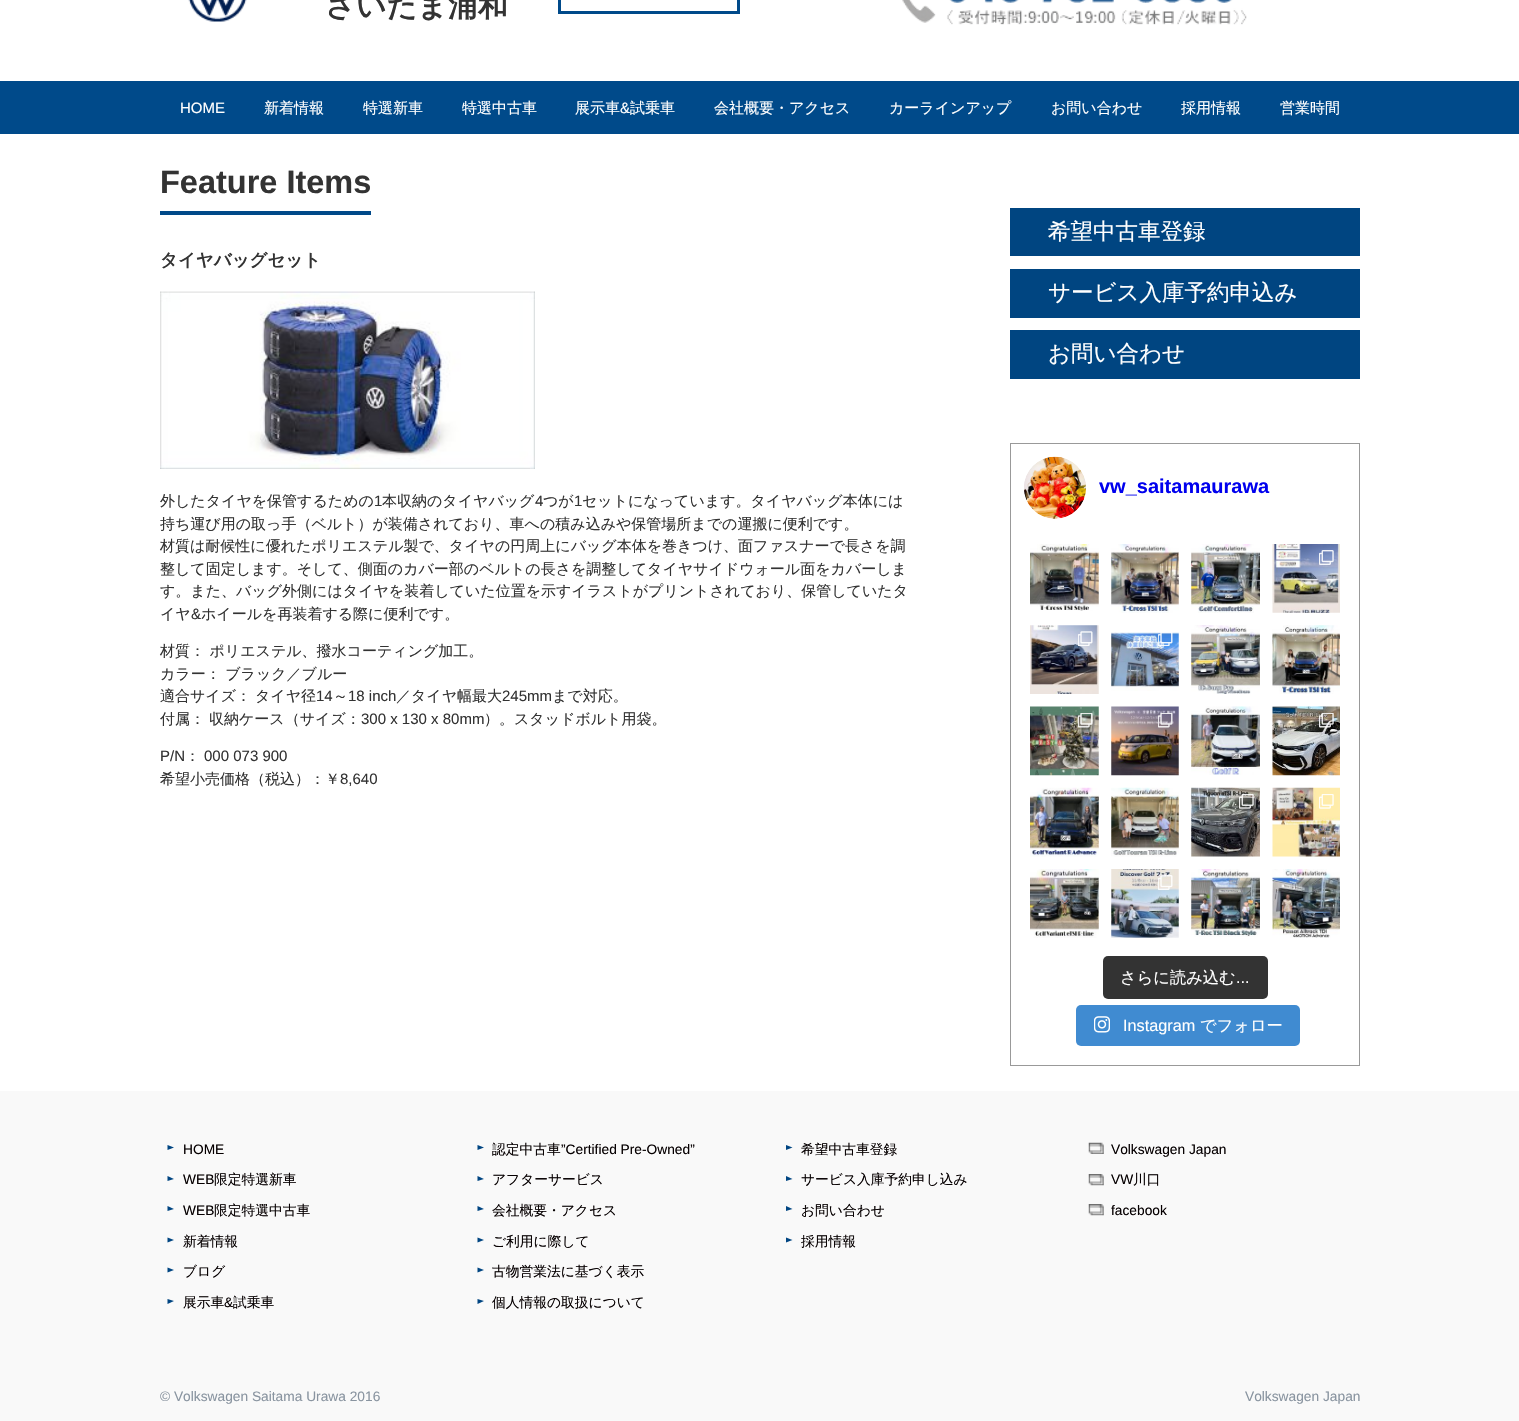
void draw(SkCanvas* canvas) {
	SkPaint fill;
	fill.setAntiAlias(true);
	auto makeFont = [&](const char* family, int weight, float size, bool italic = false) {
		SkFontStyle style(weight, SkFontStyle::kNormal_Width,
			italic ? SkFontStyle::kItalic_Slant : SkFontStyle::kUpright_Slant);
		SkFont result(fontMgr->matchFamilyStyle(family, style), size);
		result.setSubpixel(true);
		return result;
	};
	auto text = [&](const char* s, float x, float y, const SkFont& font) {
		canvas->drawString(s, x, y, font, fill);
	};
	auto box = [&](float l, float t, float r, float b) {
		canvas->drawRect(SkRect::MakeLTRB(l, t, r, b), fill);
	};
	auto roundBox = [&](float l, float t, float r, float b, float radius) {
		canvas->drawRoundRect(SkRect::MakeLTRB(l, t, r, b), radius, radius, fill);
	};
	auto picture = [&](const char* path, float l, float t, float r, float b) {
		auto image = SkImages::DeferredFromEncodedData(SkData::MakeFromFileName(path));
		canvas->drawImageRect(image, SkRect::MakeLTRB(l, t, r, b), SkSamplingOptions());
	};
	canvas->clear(0xFFFFFFFF);
	picture("image0.png", 188, 0, 247, 22);
	fill.setStyle(SkPaint::kStroke_Style);
	fill.setStrokeWidth(3);
	fill.setColor(0xFF004A8A);
	canvas->drawRect(SkRect::MakeLTRB(559.5f, -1.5f, 738.5f, 12.5f), fill);
	picture("image1.png", 902, 0, 1247, 25);
	fill.setStyle(SkPaint::kFill_Style);
	box(0, 81, 1519, 134);
	fill.setColor(0xFF004989);
	box(160, 211, 371, 215);
	picture("image2.png", 160, 291, 535, 469);
	fill.setColor(0xFF004581);
	box(1010, 208, 1360, 256);
	box(1010, 269, 1360, 318);
	box(1010, 330, 1360, 379);
	fill.setStyle(SkPaint::kStroke_Style);
	fill.setStrokeWidth(1);
	fill.setColor(0xFF999999);
	canvas->drawRect(SkRect::MakeLTRB(1010.5f, 443.5f, 1359.5f, 1065.5f), fill);
	picture("image3.png", 1024, 456, 1086, 519);
	picture("image4.png", 1030, 544, 1099, 611);
	picture("image5.png", 1111, 544, 1179, 613);
	picture("image6.png", 1191, 544, 1260, 613);
	picture("image7.png", 1272, 544, 1340, 613);
	picture("image8.png", 1319, 550, 1334, 565);
	picture("image9.png", 1030, 625, 1099, 694);
	picture("image10.png", 1078, 631, 1093, 646);
	picture("image11.png", 1111, 632, 1179, 691);
	picture("image12.png", 1158, 632, 1173, 646);
	picture("image13.png", 1191, 625, 1260, 694);
	picture("image14.png", 1272, 625, 1340, 694);
	picture("image15.png", 1030, 706, 1099, 776);
	picture("image16.png", 1078, 713, 1093, 728);
	picture("image17.png", 1111, 706, 1179, 776);
	picture("image18.png", 1158, 713, 1173, 728);
	picture("image19.png", 1191, 706, 1260, 775);
	picture("image20.png", 1272, 706, 1340, 776);
	picture("image21.png", 1319, 713, 1334, 728);
	picture("image22.png", 1030, 787, 1099, 857);
	picture("image23.png", 1111, 787, 1179, 857);
	picture("image24.png", 1191, 787, 1260, 857);
	picture("image25.png", 1239, 794, 1254, 809);
	picture("image26.png", 1272, 787, 1340, 857);
	picture("image27.png", 1319, 794, 1334, 809);
	picture("image28.png", 1030, 869, 1099, 938);
	picture("image29.png", 1111, 869, 1179, 938);
	picture("image30.png", 1158, 875, 1173, 890);
	picture("image31.png", 1191, 869, 1260, 937);
	picture("image32.png", 1272, 869, 1340, 938);
	fill.setStyle(SkPaint::kFill_Style);
	fill.setColor(0xFF333333);
	roundBox(1103, 956, 1268, 999, 5);
	fill.setColor(0xFF408BD1);
	roundBox(1076, 1005, 1300, 1046, 5);
	picture("image33.png", 1094, 1016, 1110, 1033);
	fill.setColor(0xFFF9F9F9);
	box(0, 1091, 1519, 1421);
	fill.setColor(0xFF004582);
	canvas->drawPath(SkPathBuilder().moveTo(167.5f, 1150).lineTo(167.5f, 1145).lineTo(174, 1147.5f).close().detach(), fill);
	canvas->drawPath(SkPathBuilder().moveTo(167.5f, 1181).lineTo(167.5f, 1176).lineTo(174, 1179).close().detach(), fill);
	canvas->drawPath(SkPathBuilder().moveTo(167.5f, 1211).lineTo(167.5f, 1206).lineTo(174, 1209).close().detach(), fill);
	canvas->drawPath(SkPathBuilder().moveTo(167.5f, 1242.5f).lineTo(167.5f, 1237.5f).lineTo(174, 1240).close().detach(), fill);
	canvas->drawPath(SkPathBuilder().moveTo(167.5f, 1272.5f).lineTo(167.5f, 1267.5f).lineTo(174, 1270).close().detach(), fill);
	canvas->drawPath(SkPathBuilder().moveTo(167.5f, 1304).lineTo(167.5f, 1299).lineTo(174, 1301).close().detach(), fill);
	canvas->drawPath(SkPathBuilder().moveTo(477.5f, 1150).lineTo(477.5f, 1145).lineTo(484, 1147.5f).close().detach(), fill);
	canvas->drawPath(SkPathBuilder().moveTo(477.5f, 1181).lineTo(477.5f, 1176).lineTo(484, 1179).close().detach(), fill);
	canvas->drawPath(SkPathBuilder().moveTo(477.5f, 1211).lineTo(477.5f, 1206).lineTo(484, 1209).close().detach(), fill);
	canvas->drawPath(SkPathBuilder().moveTo(477.5f, 1242.5f).lineTo(477.5f, 1237.5f).lineTo(484, 1240).close().detach(), fill);
	canvas->drawPath(SkPathBuilder().moveTo(477.5f, 1272.5f).lineTo(477.5f, 1267.5f).lineTo(484, 1270).close().detach(), fill);
	canvas->drawPath(SkPathBuilder().moveTo(477.5f, 1304).lineTo(477.5f, 1299).lineTo(484, 1301).close().detach(), fill);
	canvas->drawPath(SkPathBuilder().moveTo(786, 1150).lineTo(786, 1145).lineTo(792.5f, 1147.5f).close().detach(), fill);
	canvas->drawPath(SkPathBuilder().moveTo(786, 1181).lineTo(786, 1176).lineTo(792.5f, 1179).close().detach(), fill);
	canvas->drawPath(SkPathBuilder().moveTo(786, 1211).lineTo(786, 1206).lineTo(792.5f, 1209).close().detach(), fill);
	canvas->drawPath(SkPathBuilder().moveTo(786, 1242.5f).lineTo(786, 1237.5f).lineTo(792.5f, 1240).close().detach(), fill);
	picture("image34.png", 1088, 1142, 1104, 1154);
	picture("image35.png", 1088, 1174, 1104, 1186);
	picture("image35.png", 1088, 1204, 1104, 1216);
	auto font1 = makeFont("WenQuanYi Zen Hei", 700, 30);
	fill.setColor(0xFF333333);
	text("さいたま浦和", 325, 16, font1);
	auto font2 = makeFont("Liberation Sans", 400, 15);
	fill.setColor(0xFFFFFFFF);
	text("HOME", 180, 113, font2);
	auto font3 = makeFont("WenQuanYi Zen Hei", 500, 15);
	text("新着情報", 264, 113, font3);
	text("特選新車", 363, 113, font3);
	text("特選中古車", 462, 113, font3);
	text("展示車", 575, 113, font3);
	text("&", 620, 113, font2);
	text("試乗車", 630, 113, font3);
	text("会社概要・アクセス", 714, 113, font3);
	text("カーラインアップ", 889, 113, font3);
	text("お問い合わせ", 1051, 113, font3);
	text("採用情報", 1181, 113, font3);
	text("営業時間", 1280, 113, font3);
	auto font4 = makeFont("Liberation Sans", 700, 32.5f);
	fill.setColor(0xFF333333);
	text("Feature Items", 160, 193, font4);
	auto font5 = makeFont("WenQuanYi Zen Hei", 700, 17.5f);
	text("タイヤバッグセット", 160, 266, font5);
	text("外したタイヤを保管するための", 160, 506, font3);
	text("1", 374, 506, font2);
	text("本収納のタイヤバッグ", 382, 506, font3);
	text("4", 535, 506, font2);
	text("つが", 543, 506, font3);
	text("1", 574, 506, font2);
	text("セットになっています。タイヤバッグ本体には", 582, 506, font3);
	text("持ち運び用の取っ手（ベルト）が装備されており、車への積み込みや保管場所までの運搬に便利です。", 160, 529, font3);
	text("材質は耐候性に優れたポリエステル製で、タイヤの円周上にバッグ本体を巻きつけ、面ファスナーで長さを調", 160, 551, font3);
	text("整して固定します。そして、側面のカバー部のベルトの長さを調整してタイヤサイドウォール面をカバーしま", 160, 574, font3);
	text("す。また、バッグ外側にはタイヤを装着していた位置を示すイラストがプリントされており、保管していたタ", 160, 596, font3);
	text("イヤ", 160, 619, font3);
	text("&", 191, 619, font2);
	text("ホイールを再装着する際に便利です。", 201, 619, font3);
	text("材質： ポリエステル、撥水コーティング加工。", 160, 656, font3);
	text("カラー： ブラック／ブルー", 160, 679, font3);
	text("適合サイズ：", 160, 701, font3);
	text("タイヤ径", 255, 701, font3);
	text("14", 316, 701, font2);
	text("～", 333, 701, font3);
	text("18 inch", 348, 701, font2);
	text("／タイヤ幅最大", 396, 701, font3);
	text("245mm", 502, 701, font2);
	text("まで対応。", 552, 701, font3);
	text("付属：", 160, 724, font3);
	text("収納ケース（サイズ：", 209, 724, font3);
	text("300 x 130 x 80mm", 361, 724, font2);
	text("）。スタッドボルト用袋。", 484, 724, font3);
	text("P/N", 160, 761, font2);
	text("：", 185, 761, font3);
	text("000 073 900", 204, 761, font2);
	text("希望小売価格（税込）：￥", 160, 784, font3);
	text("8,640", 340, 784, font2);
	auto font6 = makeFont("WenQuanYi Zen Hei", 500, 22.5f);
	fill.setColor(0xFFFFFFFF);
	text("希望中古車登録", 1048, 239, font6);
	text("サービス入庫予約申込み", 1048, 300, font6);
	text("お問い合わせ", 1048, 361, font6);
	auto font7 = makeFont("Liberation Sans", 700, 20);
	fill.setColor(0xFF0000EE);
	text("vw_saitamaurawa", 1099, 493, font7);
	auto font8 = makeFont("WenQuanYi Zen Hei", 500, 16.25f);
	fill.setColor(0xFFFFFFFF);
	text("さらに読み込む", 1120, 983, font8);
	auto font9 = makeFont("Liberation Sans", 400, 16.25f);
	text("...", 1236, 983, font9);
	text("Instagram", 1123, 1031, font9);
	text("でフォロー", 1200, 1031, font8);
	auto font10 = makeFont("Liberation Sans", 400, 13.75f);
	fill.setColor(0xFF060001);
	text("HOME", 183, 1154, font10);
	text("WEB", 183, 1184, font10);
	auto font11 = makeFont("WenQuanYi Zen Hei", 500, 13.75f);
	text("限定特選新車", 214, 1184, font11);
	text("WEB", 183, 1215, font10);
	text("限定特選中古車", 214, 1215, font11);
	text("新着情報", 183, 1246, font11);
	text("ブログ", 183, 1276, font11);
	text("展示車", 183, 1307, font11);
	text("&", 224, 1307, font10);
	text("試乗車", 233, 1307, font11);
	text("認定中古車", 492, 1154, font11);
	text("”Certified Pre-Owned”", 561, 1154, font10);
	text("アフターサービス", 492, 1184, font11);
	text("会社概要・アクセス", 492, 1215, font11);
	text("ご利用に際して", 492, 1246, font11);
	text("古物営業法に基づく表示", 492, 1276, font11);
	text("個人情報の取扱について", 492, 1307, font11);
	text("希望中古車登録", 801, 1154, font11);
	text("サービス入庫予約申し込み", 801, 1184, font11);
	text("お問い合わせ", 801, 1215, font11);
	text("採用情報", 801, 1246, font11);
	text("Volkswagen Japan", 1111, 1154, font10);
	text("VW", 1111, 1184, font10);
	text("川口", 1133, 1184, font11);
	text("facebook", 1111, 1215, font10);
	fill.setColor(0xFF8994A0);
	text("© Volkswagen Saitama Urawa 2016", 160, 1401, font10);
	text("Volkswagen Japan", 1245, 1401, font10);
}
